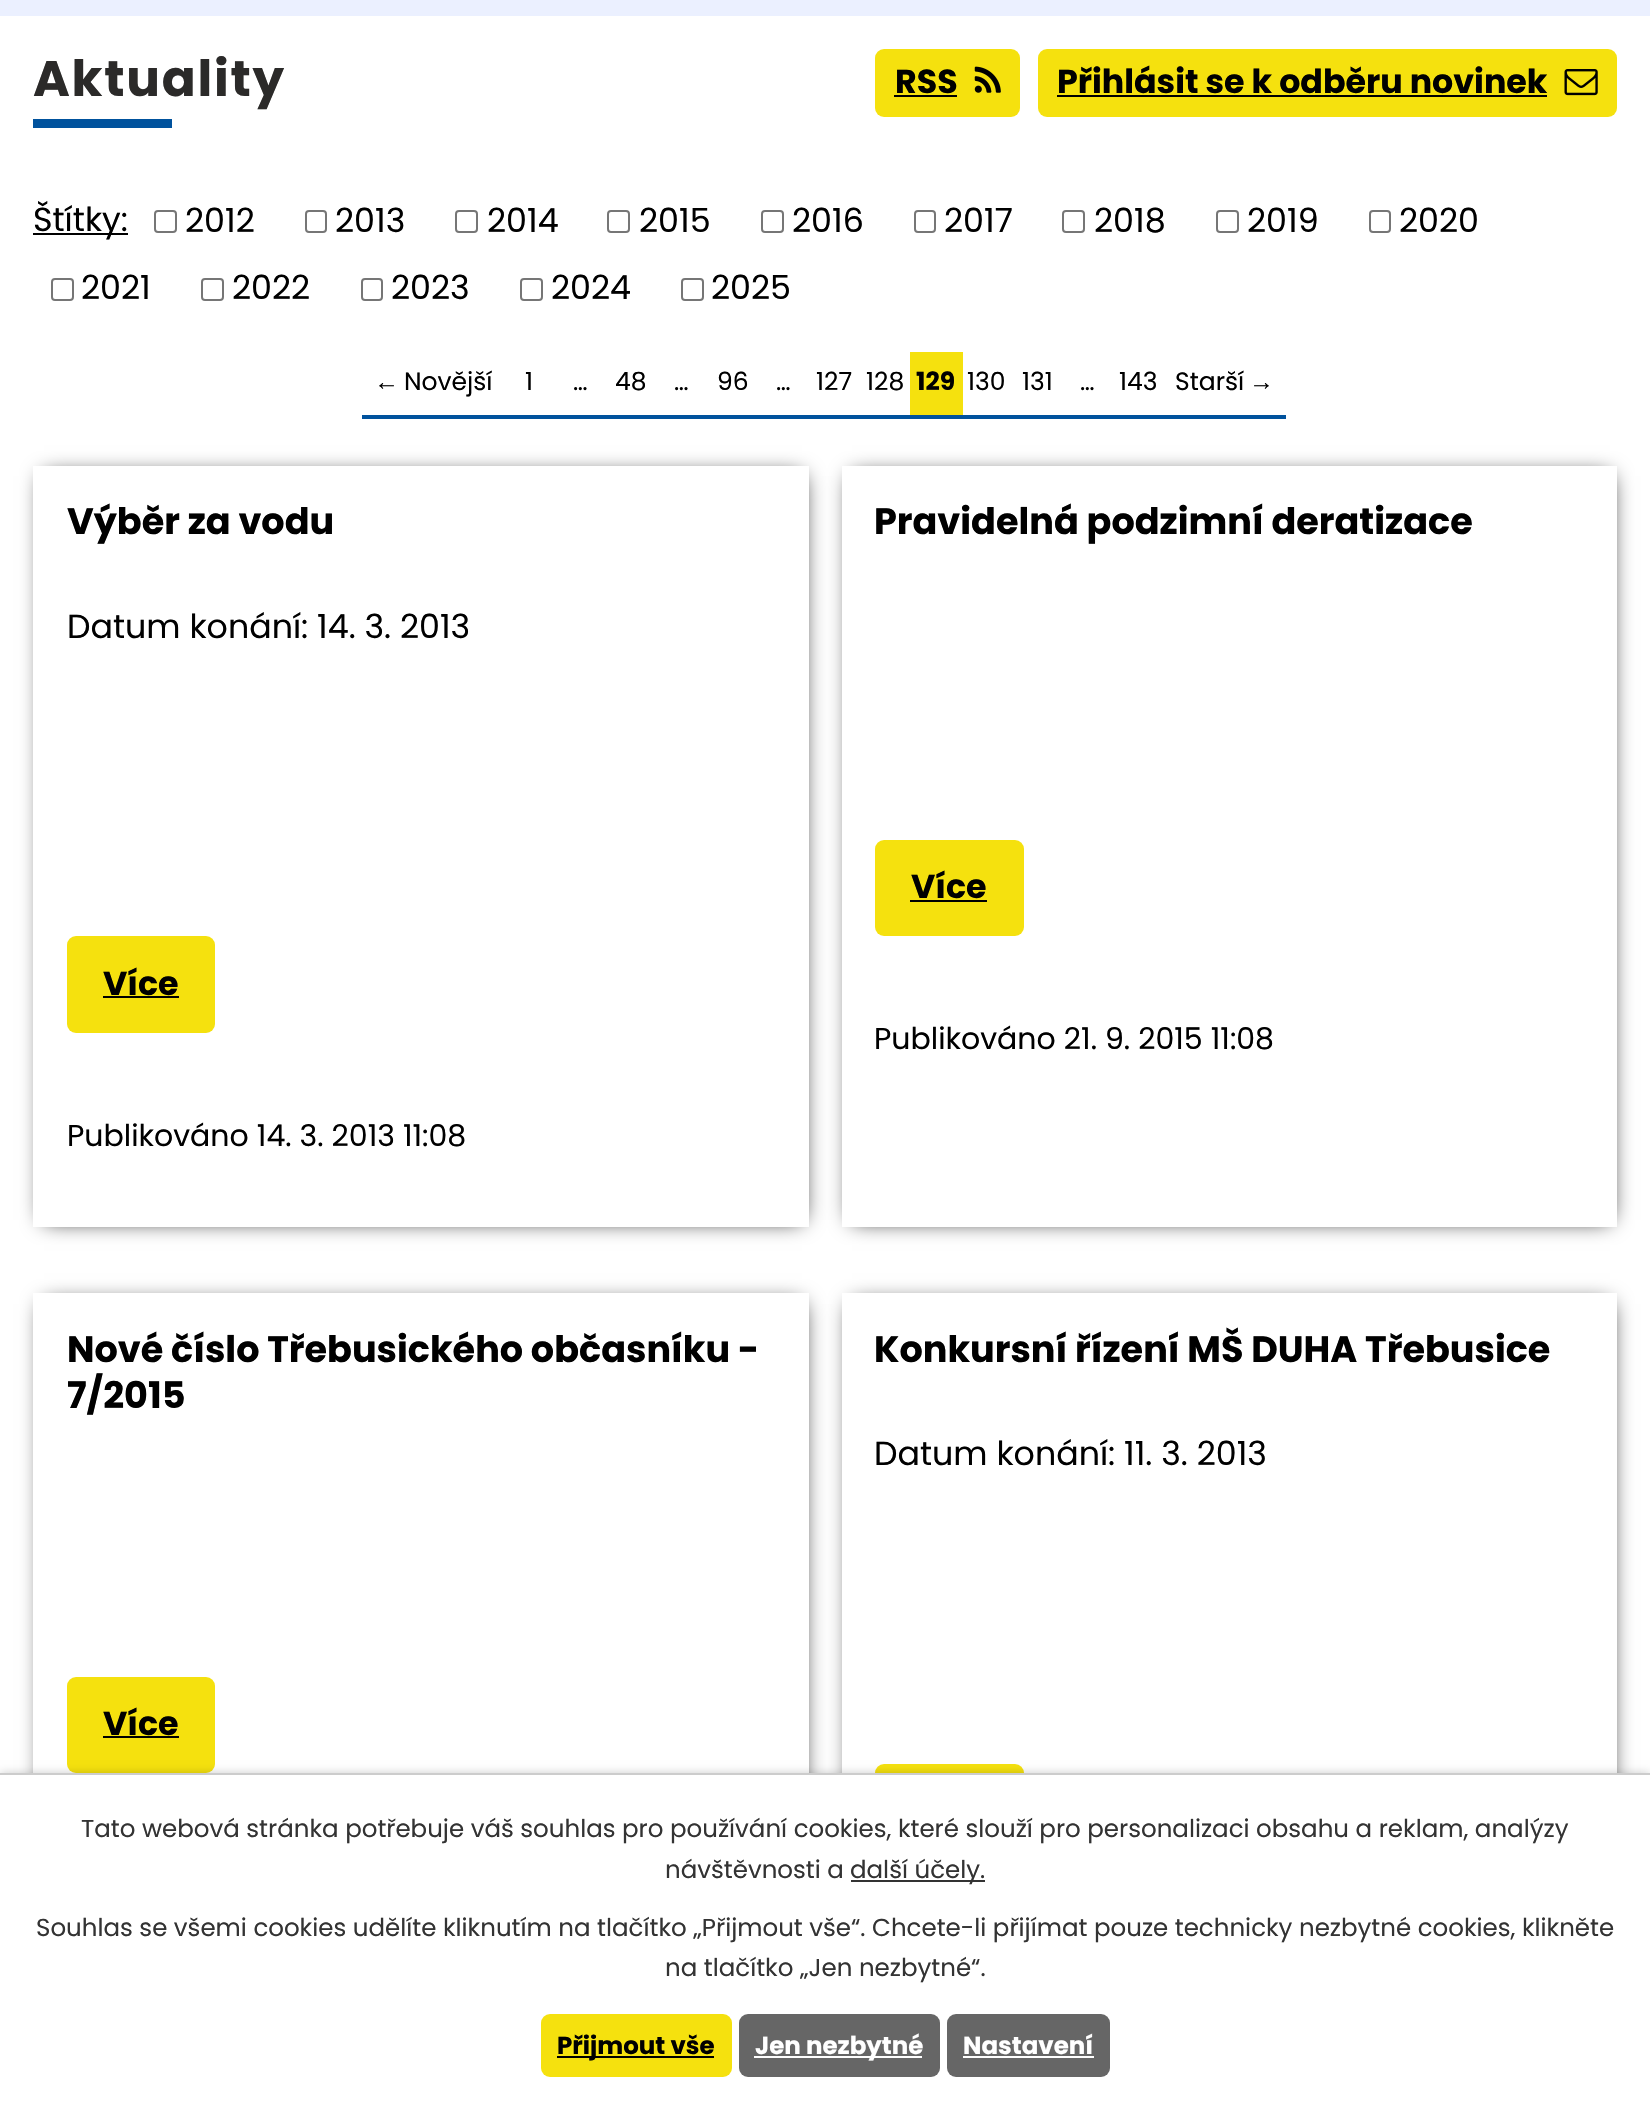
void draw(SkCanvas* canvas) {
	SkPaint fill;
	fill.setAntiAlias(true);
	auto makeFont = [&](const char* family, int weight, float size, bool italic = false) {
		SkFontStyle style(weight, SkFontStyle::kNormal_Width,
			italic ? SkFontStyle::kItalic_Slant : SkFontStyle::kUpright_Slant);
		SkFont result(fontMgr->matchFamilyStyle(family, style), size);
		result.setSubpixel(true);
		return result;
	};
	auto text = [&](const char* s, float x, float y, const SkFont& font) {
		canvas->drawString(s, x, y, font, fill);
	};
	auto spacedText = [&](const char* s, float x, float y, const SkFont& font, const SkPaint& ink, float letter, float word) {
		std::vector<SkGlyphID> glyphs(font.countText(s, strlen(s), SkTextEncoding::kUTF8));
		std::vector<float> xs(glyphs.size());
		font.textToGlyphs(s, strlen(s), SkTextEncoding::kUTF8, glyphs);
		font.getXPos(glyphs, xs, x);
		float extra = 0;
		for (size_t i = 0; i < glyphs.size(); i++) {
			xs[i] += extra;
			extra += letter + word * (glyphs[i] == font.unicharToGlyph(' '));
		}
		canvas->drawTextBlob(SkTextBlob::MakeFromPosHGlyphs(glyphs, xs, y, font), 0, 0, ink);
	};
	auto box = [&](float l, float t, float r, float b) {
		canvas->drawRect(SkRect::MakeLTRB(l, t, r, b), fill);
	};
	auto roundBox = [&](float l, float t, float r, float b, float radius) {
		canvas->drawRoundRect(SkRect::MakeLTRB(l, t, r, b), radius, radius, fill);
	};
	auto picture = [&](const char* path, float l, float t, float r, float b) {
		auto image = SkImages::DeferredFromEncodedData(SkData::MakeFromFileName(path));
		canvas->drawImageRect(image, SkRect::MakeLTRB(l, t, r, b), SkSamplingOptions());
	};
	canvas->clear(0xFFFFFFFF);
	fill.setColor(0xFFEBF0FF);
	box(0, 0, 1650, 16);
	fill.setColor(0xFF00529D);
	box(33, 119, 172, 128);
	fill.setColor(0xFFF5E10E);
	roundBox(875, 49, 1020, 117, 9);
	fill.setColor(0xFF000000);
	box(894, 95, 957, 97);
	picture("image0.png", 974, 66, 1001, 93);
	fill.setColor(0xFFF5E10E);
	roundBox(1038, 49, 1617, 117, 9);
	fill.setColor(0xFF000000);
	box(1057, 95, 1547, 97);
	picture("image1.png", 1564, 69, 1598, 96);
	box(33, 233, 128, 235);
	fill.setStyle(SkPaint::kStroke_Style);
	fill.setStrokeWidth(2);
	fill.setColor(0xFF767676);
	canvas->drawRoundRect(SkRect::MakeLTRB(155, 211, 176, 232), 3, 3, fill);
	canvas->drawRoundRect(SkRect::MakeLTRB(306, 211, 326, 232), 3, 3, fill);
	canvas->drawRoundRect(SkRect::MakeLTRB(456, 211, 477, 232), 3, 3, fill);
	canvas->drawRoundRect(SkRect::MakeLTRB(608, 211, 629, 232), 3, 3, fill);
	canvas->drawRoundRect(SkRect::MakeLTRB(762, 211, 783, 232), 3, 3, fill);
	canvas->drawRoundRect(SkRect::MakeLTRB(915, 211, 935, 232), 3, 3, fill);
	canvas->drawRoundRect(SkRect::MakeLTRB(1063, 211, 1084, 232), 3, 3, fill);
	canvas->drawRoundRect(SkRect::MakeLTRB(1217, 211, 1238, 232), 3, 3, fill);
	canvas->drawRoundRect(SkRect::MakeLTRB(1370, 211, 1390, 232), 3, 3, fill);
	canvas->drawRoundRect(SkRect::MakeLTRB(52, 279, 73, 300), 3, 3, fill);
	canvas->drawRoundRect(SkRect::MakeLTRB(202, 279, 223, 300), 3, 3, fill);
	canvas->drawRoundRect(SkRect::MakeLTRB(362, 279, 382, 300), 3, 3, fill);
	canvas->drawRoundRect(SkRect::MakeLTRB(521, 279, 542, 300), 3, 3, fill);
	canvas->drawRoundRect(SkRect::MakeLTRB(682, 279, 703, 300), 3, 3, fill);
	fill.setStyle(SkPaint::kFill_Style);
	fill.setColor(0xFF00529D);
	box(362, 415, 1286, 419);
	fill.setColor(0xFFF5E10E);
	box(910, 352, 963, 415);
	fill.setColor(0xFF000000);
	fill.setMaskFilter(SkMaskFilter::MakeBlur(kNormal_SkBlurStyle, 10.5f));
	canvas->drawRect(SkRect::MakeLTRB(44, 476, 802, 1220), fill);
	fill.setMaskFilter(nullptr);
	fill.setColor(0xFFFFFFFF);
	box(33, 466, 809, 1227);
	fill.setColor(0xFFF5E10E);
	roundBox(67, 936, 215, 1033, 9);
	fill.setColor(0xFF000000);
	box(103, 996, 179, 998);
	fill.setMaskFilter(SkMaskFilter::MakeBlur(kNormal_SkBlurStyle, 10.5f));
	canvas->drawRect(SkRect::MakeLTRB(852, 476, 1610, 1220), fill);
	fill.setMaskFilter(nullptr);
	fill.setColor(0xFFFFFFFF);
	box(842, 466, 1617, 1227);
	fill.setColor(0xFFF5E10E);
	roundBox(875, 840, 1024, 936, 9);
	fill.setColor(0xFF000000);
	box(910, 900, 987, 902);
	fill.setMaskFilter(SkMaskFilter::MakeBlur(kNormal_SkBlurStyle, 10.5f));
	canvas->drawRect(SkRect::MakeLTRB(44, 1304, 802, 2048), fill);
	fill.setMaskFilter(nullptr);
	fill.setColor(0xFFFFFFFF);
	box(33, 1293, 809, 1773);
	fill.setColor(0xFFF5E10E);
	roundBox(67, 1677, 215, 1773, 9);
	fill.setColor(0xFF000000);
	box(103, 1736, 179, 1738);
	fill.setMaskFilter(SkMaskFilter::MakeBlur(kNormal_SkBlurStyle, 10.5f));
	canvas->drawRect(SkRect::MakeLTRB(852, 1304, 1610, 2048), fill);
	fill.setMaskFilter(nullptr);
	fill.setColor(0xFFFFFFFF);
	box(842, 1293, 1617, 1773);
	fill.setColor(0xFFF5E10E);
	roundBox(875, 1764, 1024, 1860, 9);
	fill.setColor(0x33000000);
	fill.setMaskFilter(SkMaskFilter::MakeBlur(kNormal_SkBlurStyle, 4.5f));
	canvas->drawRect(SkRect::MakeLTRB(0, 1773, 1650, 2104), fill);
	fill.setMaskFilter(nullptr);
	fill.setColor(0xFFFFFFFF);
	box(0, 1775, 1650, 2103);
	fill.setColor(0xFFCCCCCC);
	box(0, 1773, 1650, 1775);
	fill.setColor(0xFF333333);
	box(851, 1880, 985, 1882);
	fill.setColor(0xFFF5E10E);
	roundBox(541, 2014, 732, 2077, 9);
	fill.setColor(0xFF000000);
	box(557, 2056, 714, 2058);
	fill.setColor(0xFF666666);
	roundBox(739, 2014, 940, 2077, 9);
	fill.setColor(0xFFFFFFFF);
	box(754, 2056, 922, 2058);
	fill.setColor(0xFF666666);
	roundBox(947, 2014, 1110, 2077, 9);
	fill.setColor(0xFFFFFFFF);
	box(963, 2056, 1094, 2058);
	auto font1 = makeFont("Poppins", 700, 50);
	fill.setColor(0xFF2B2A29);
	spacedText("Aktuality", 33, 96, font1, fill, 1.75f, 0);
	auto font2 = makeFont("Poppins", 700, 33.25f);
	fill.setColor(0xFF000000);
	text("RSS", 895, 93, font2);
	text("Přihlásit se k odběru novinek", 1057, 93, font2);
	auto font3 = makeFont("Poppins", 400, 33.25f);
	text("Štítky:", 33, 231, font3);
	text("2012", 185, 232, font3);
	text("2013", 335, 232, font3);
	text("2014", 487, 232, font3);
	text("2015", 639, 232, font3);
	text("2016", 792, 232, font3);
	text("2017", 944, 232, font3);
	text("2018", 1094, 232, font3);
	text("2019", 1247, 232, font3);
	text("2020", 1399, 232, font3);
	text("2021", 81, 299, font3);
	text("2022", 232, 299, font3);
	text("2023", 391, 299, font3);
	text("2024", 551, 299, font3);
	text("2025", 711, 299, font3);
	auto font4 = makeFont("Liberation Sans", 400, 25);
	text("←", 374, 390, font4);
	auto font5 = makeFont("Poppins", 400, 25);
	text("Novější", 404, 390, font5);
	text("1", 525, 390, font5);
	text("…", 573, 390, font5);
	text("48", 615, 390, font5);
	text("…", 674, 390, font5);
	text("96", 717, 390, font5);
	text("…", 776, 390, font5);
	text("127", 816, 390, font5);
	text("128", 866, 390, font5);
	auto font6 = makeFont("Poppins", 700, 25);
	text("129", 916, 390, font6);
	text("130", 967, 390, font5);
	text("131", 1022, 390, font5);
	text("…", 1080, 390, font5);
	text("143", 1119, 390, font5);
	text("Starší", 1175, 390, font5);
	text("→", 1249, 390, font4);
	auto font7 = makeFont("Poppins", 700, 36.6f);
	text("Výběr za vodu", 67, 534, font7);
	text("Datum konání: 14. 3. 2013", 67, 638, font3);
	text("Více", 103, 995, font2);
	auto font8 = makeFont("Poppins", 400, 30);
	text("Publikováno 14. 3. 2013 11:08", 67, 1146, font8);
	text("Pravidelná podzimní deratizace", 874, 534, font7);
	text("Více", 911, 898, font2);
	text("Publikováno 21. 9. 2015 11:08", 874, 1049, font8);
	text("Nové číslo Třebusického občasníku -", 67, 1362, font7);
	text("7/2015", 67, 1408, font7);
	text("Více", 103, 1735, font2);
	text("Konkursní řízení MŠ DUHA Třebusice", 874, 1362, font7);
	text("Datum konání: 11. 3. 2013", 874, 1465, font3);
	auto font9 = makeFont("Poppins", 400, 24.5f);
	fill.setColor(0xFF333333);
	text("Tato webová stránka potřebuje váš souhlas pro používání cookies, které slouží pro personalizaci obsahu a reklam, analýzy", 81, 1837, font9);
	text("návštěvnosti a", 665, 1878, font9);
	text("další účely.", 850, 1878, font9);
	text("Souhlas se všemi cookies udělíte kliknutím na tlačítko „Přijmout vše“. Chcete-li přijímat pouze technicky nezbytné cookies, klikněte", 36, 1936, font9);
	text("na tlačítko „Jen nezbytné“.", 665, 1976, font9);
	auto font10 = makeFont("Poppins", 700, 24.5f);
	fill.setColor(0xFF000000);
	text("Přijmout vše", 557, 2054, font10);
	fill.setColor(0xFFFFFFFF);
	text("Jen nezbytné", 755, 2054, font10);
	text("Nastavení", 963, 2054, font10);
}
